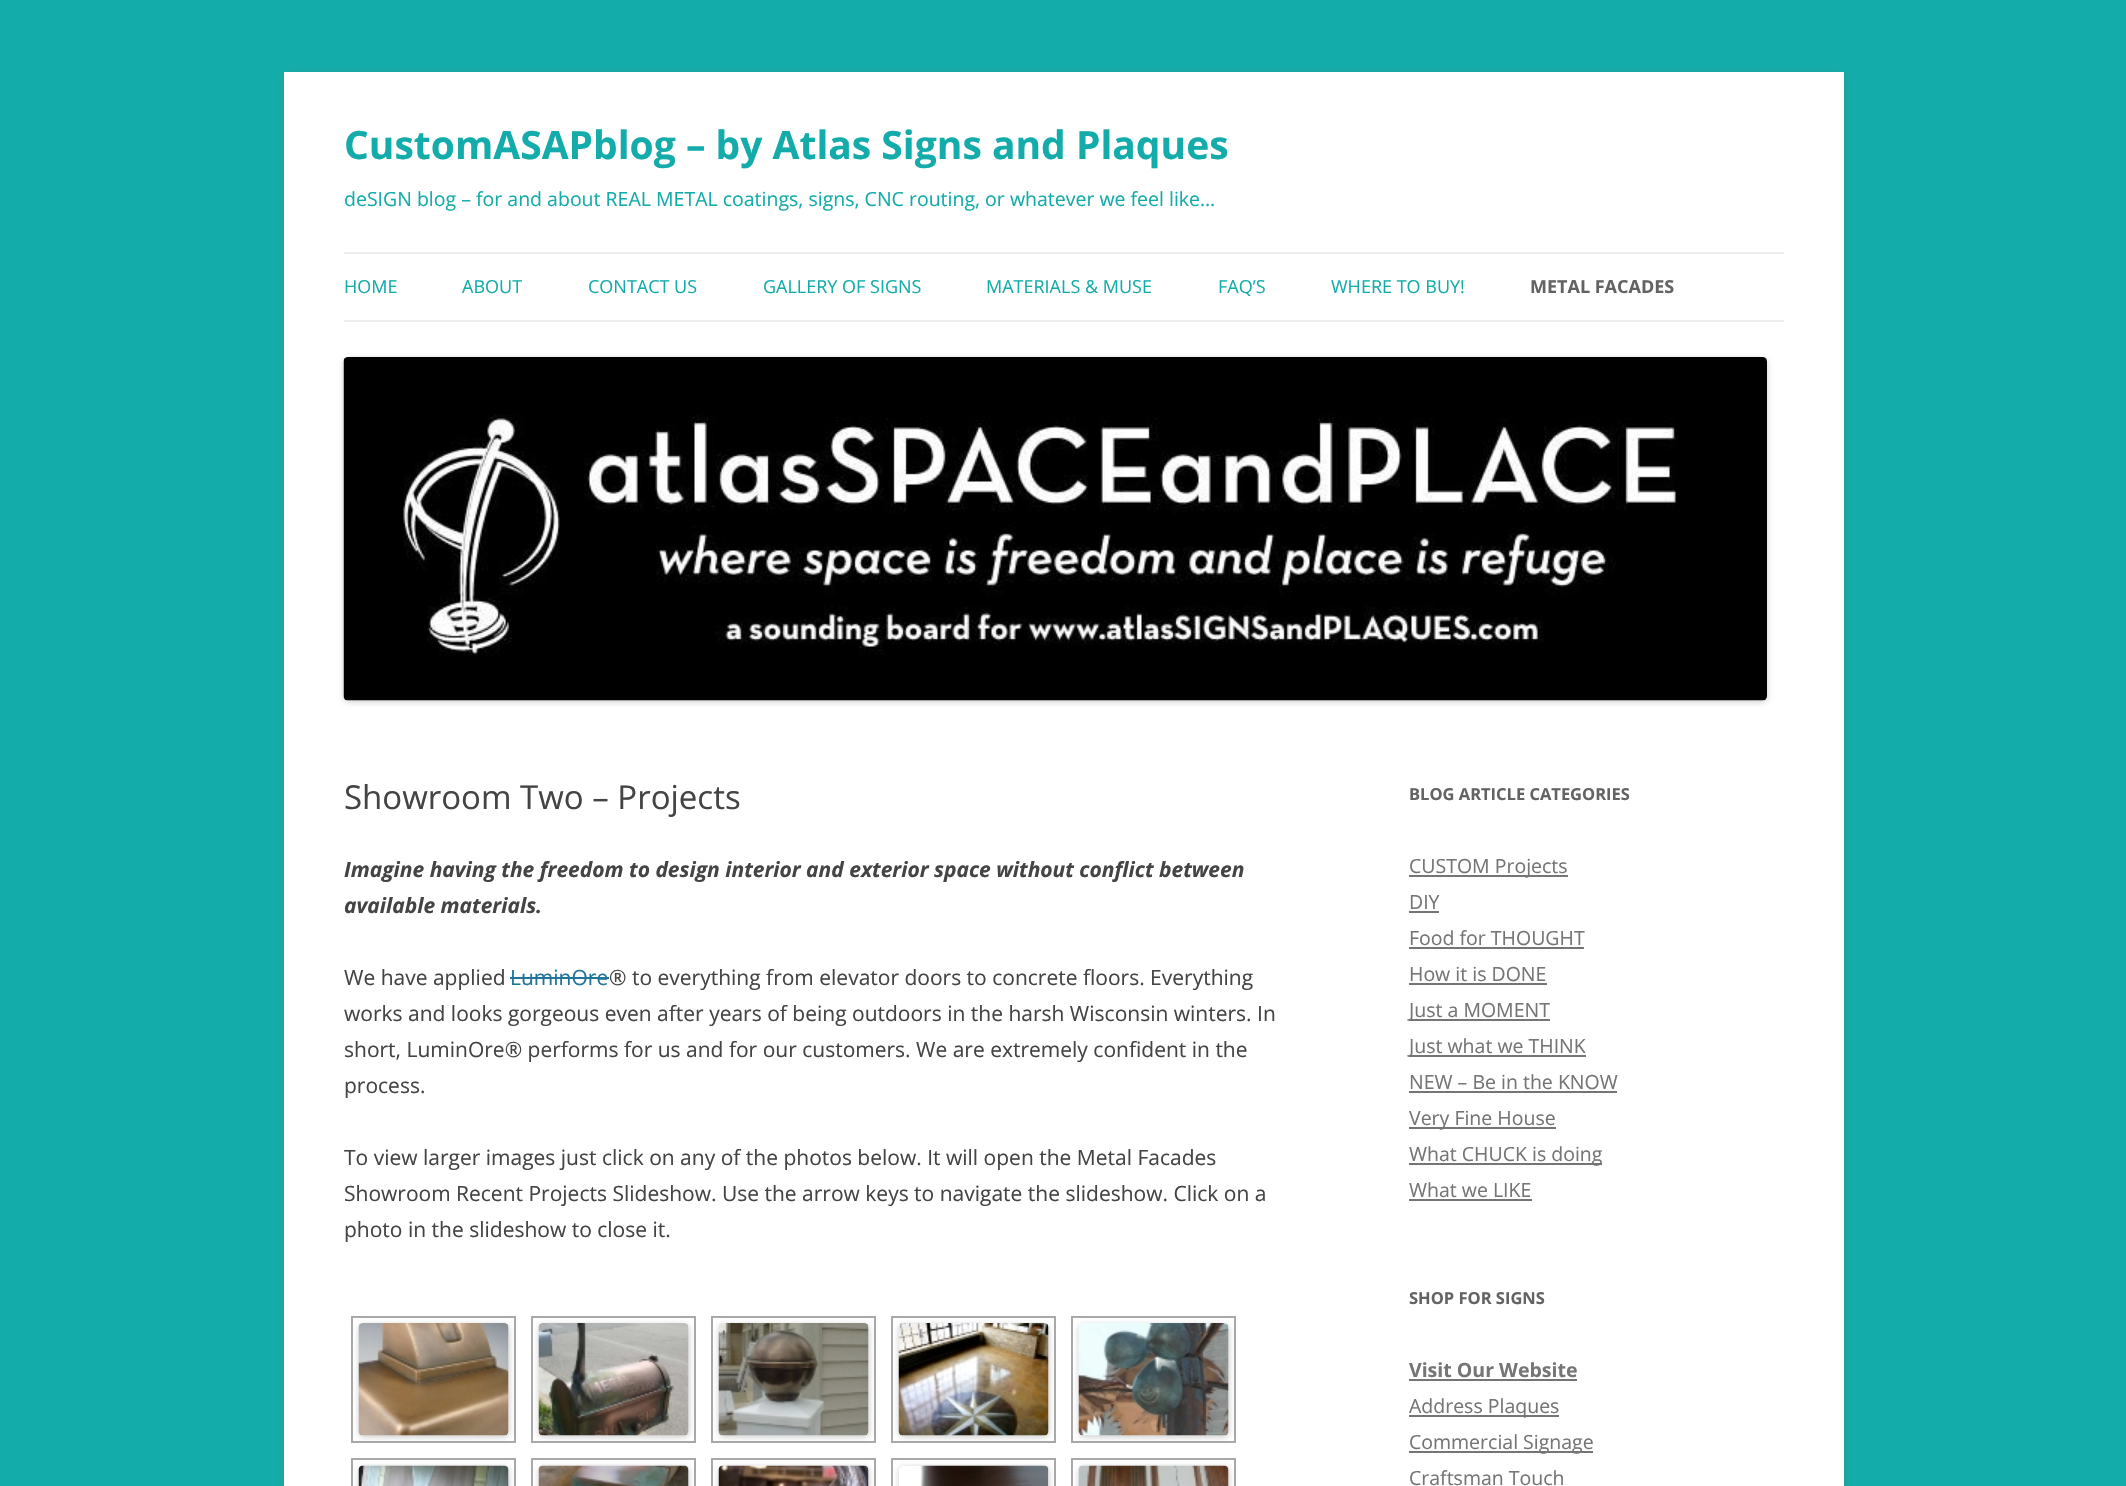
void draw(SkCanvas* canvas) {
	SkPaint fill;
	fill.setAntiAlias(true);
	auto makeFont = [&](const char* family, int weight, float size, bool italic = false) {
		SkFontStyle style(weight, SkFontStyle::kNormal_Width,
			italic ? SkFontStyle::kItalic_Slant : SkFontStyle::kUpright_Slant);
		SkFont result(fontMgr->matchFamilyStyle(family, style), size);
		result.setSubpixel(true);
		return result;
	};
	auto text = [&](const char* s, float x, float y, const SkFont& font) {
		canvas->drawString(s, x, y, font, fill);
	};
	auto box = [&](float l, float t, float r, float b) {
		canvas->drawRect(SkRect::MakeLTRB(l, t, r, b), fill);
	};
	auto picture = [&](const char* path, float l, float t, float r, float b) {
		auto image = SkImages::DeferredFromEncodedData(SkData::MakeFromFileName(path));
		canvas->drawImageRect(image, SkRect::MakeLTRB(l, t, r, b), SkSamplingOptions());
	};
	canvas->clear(0xFF13ACAA);
	fill.setColor(0x4D646464);
	fill.setMaskFilter(SkMaskFilter::MakeBlur(kNormal_SkBlurStyle, 4.5f));
	canvas->drawRect(SkRect::MakeLTRB(284, 75, 1844, 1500), fill);
	fill.setMaskFilter(nullptr);
	fill.setColor(0xFFFFFFFF);
	box(284, 72, 1844, 1486);
	fill.setColor(0xFFEDEDED);
	box(344, 252, 1784, 254);
	box(344, 320, 1784, 322);
	fill.setColor(0x33000000);
	fill.setMaskFilter(SkMaskFilter::MakeBlur(kNormal_SkBlurStyle, 3));
	canvas->drawRoundRect(SkRect::MakeLTRB(344, 359, 1767, 702), 5, 5, fill);
	fill.setMaskFilter(nullptr);
	picture("image0.png", 343, 357, 1767, 701);
	fill.setColor(0xFF21759B);
	box(510, 977, 609, 979);
	fill.setStyle(SkPaint::kStroke_Style);
	fill.setStrokeWidth(2);
	fill.setColor(0xFFA9A9A9);
	canvas->drawRect(SkRect::MakeLTRB(352, 1317, 515, 1442), fill);
	fill.setStyle(SkPaint::kFill_Style);
	fill.setColor(0x33000000);
	fill.setMaskFilter(SkMaskFilter::MakeBlur(kNormal_SkBlurStyle, 3));
	canvas->drawRoundRect(SkRect::MakeLTRB(359, 1325, 509, 1437), 5, 5, fill);
	fill.setMaskFilter(nullptr);
	picture("image1.png", 358, 1323, 509, 1436);
	fill.setStyle(SkPaint::kStroke_Style);
	fill.setColor(0xFFA9A9A9);
	canvas->drawRect(SkRect::MakeLTRB(532, 1317, 695, 1442), fill);
	fill.setStyle(SkPaint::kFill_Style);
	fill.setColor(0x33000000);
	fill.setMaskFilter(SkMaskFilter::MakeBlur(kNormal_SkBlurStyle, 3));
	canvas->drawRoundRect(SkRect::MakeLTRB(539, 1325, 689, 1437), 5, 5, fill);
	fill.setMaskFilter(nullptr);
	picture("image2.png", 538, 1323, 689, 1436);
	fill.setStyle(SkPaint::kStroke_Style);
	fill.setColor(0xFFA9A9A9);
	canvas->drawRect(SkRect::MakeLTRB(712, 1317, 875, 1442), fill);
	fill.setStyle(SkPaint::kFill_Style);
	fill.setColor(0x33000000);
	fill.setMaskFilter(SkMaskFilter::MakeBlur(kNormal_SkBlurStyle, 3));
	canvas->drawRoundRect(SkRect::MakeLTRB(719, 1325, 869, 1437), 5, 5, fill);
	fill.setMaskFilter(nullptr);
	picture("image3.png", 718, 1323, 869, 1436);
	fill.setStyle(SkPaint::kStroke_Style);
	fill.setColor(0xFFA9A9A9);
	canvas->drawRect(SkRect::MakeLTRB(892, 1317, 1055, 1442), fill);
	fill.setStyle(SkPaint::kFill_Style);
	fill.setColor(0x33000000);
	fill.setMaskFilter(SkMaskFilter::MakeBlur(kNormal_SkBlurStyle, 3));
	canvas->drawRoundRect(SkRect::MakeLTRB(899, 1325, 1049, 1437), 5, 5, fill);
	fill.setMaskFilter(nullptr);
	picture("image4.png", 898, 1323, 1049, 1436);
	fill.setStyle(SkPaint::kStroke_Style);
	fill.setColor(0xFFA9A9A9);
	canvas->drawRect(SkRect::MakeLTRB(1072, 1317, 1235, 1442), fill);
	fill.setStyle(SkPaint::kFill_Style);
	fill.setColor(0x33000000);
	fill.setMaskFilter(SkMaskFilter::MakeBlur(kNormal_SkBlurStyle, 3));
	canvas->drawRoundRect(SkRect::MakeLTRB(1079, 1325, 1229, 1437), 5, 5, fill);
	fill.setMaskFilter(nullptr);
	picture("image5.png", 1078, 1323, 1229, 1436);
	fill.setStyle(SkPaint::kStroke_Style);
	fill.setColor(0xFFA9A9A9);
	canvas->drawRect(SkRect::MakeLTRB(352, 1459, 515, 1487), fill);
	fill.setStyle(SkPaint::kFill_Style);
	fill.setColor(0x33000000);
	fill.setMaskFilter(SkMaskFilter::MakeBlur(kNormal_SkBlurStyle, 3));
	canvas->drawRoundRect(SkRect::MakeLTRB(359, 1467, 509, 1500), 5, 5, fill);
	fill.setMaskFilter(nullptr);
	picture("image6.png", 358, 1465, 509, 1486);
	fill.setStyle(SkPaint::kStroke_Style);
	fill.setColor(0xFFA9A9A9);
	canvas->drawRect(SkRect::MakeLTRB(532, 1459, 695, 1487), fill);
	fill.setStyle(SkPaint::kFill_Style);
	fill.setColor(0x33000000);
	fill.setMaskFilter(SkMaskFilter::MakeBlur(kNormal_SkBlurStyle, 3));
	canvas->drawRoundRect(SkRect::MakeLTRB(539, 1467, 689, 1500), 5, 5, fill);
	fill.setMaskFilter(nullptr);
	picture("image7.png", 538, 1465, 689, 1486);
	fill.setStyle(SkPaint::kStroke_Style);
	fill.setColor(0xFFA9A9A9);
	canvas->drawRect(SkRect::MakeLTRB(712, 1459, 875, 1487), fill);
	fill.setStyle(SkPaint::kFill_Style);
	fill.setColor(0x33000000);
	fill.setMaskFilter(SkMaskFilter::MakeBlur(kNormal_SkBlurStyle, 3));
	canvas->drawRoundRect(SkRect::MakeLTRB(719, 1467, 869, 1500), 5, 5, fill);
	fill.setMaskFilter(nullptr);
	picture("image8.png", 718, 1465, 869, 1486);
	fill.setStyle(SkPaint::kStroke_Style);
	fill.setColor(0xFFA9A9A9);
	canvas->drawRect(SkRect::MakeLTRB(892, 1459, 1055, 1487), fill);
	canvas->save();
	canvas->clipPath(SkPathBuilder(SkPathFillType::kEvenOdd).moveTo(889, 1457).lineTo(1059, 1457).lineTo(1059, 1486).lineTo(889, 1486).close().moveTo(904, 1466).lineTo(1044, 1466).cubicTo(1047, 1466, 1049, 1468, 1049, 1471).lineTo(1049, 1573).cubicTo(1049, 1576, 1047, 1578, 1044, 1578).lineTo(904, 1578).cubicTo(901, 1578, 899, 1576, 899, 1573).lineTo(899, 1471).cubicTo(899, 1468, 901, 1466, 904, 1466).close().detach(), true);
	fill.setStyle(SkPaint::kFill_Style);
	fill.setColor(0x33000000);
	fill.setMaskFilter(SkMaskFilter::MakeBlur(kNormal_SkBlurStyle, 3));
	canvas->drawRoundRect(SkRect::MakeLTRB(899, 1467, 1049, 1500), 5, 5, fill);
	fill.setMaskFilter(nullptr);
	canvas->restore();
	picture("image9.png", 919, 1465, 1049, 1486);
	fill.setStyle(SkPaint::kStroke_Style);
	fill.setColor(0xFFA9A9A9);
	canvas->drawRect(SkRect::MakeLTRB(1072, 1459, 1235, 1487), fill);
	fill.setStyle(SkPaint::kFill_Style);
	fill.setColor(0x33000000);
	fill.setMaskFilter(SkMaskFilter::MakeBlur(kNormal_SkBlurStyle, 3));
	canvas->drawRoundRect(SkRect::MakeLTRB(1079, 1467, 1229, 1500), 5, 5, fill);
	fill.setMaskFilter(nullptr);
	picture("image10.png", 1078, 1465, 1229, 1486);
	fill.setColor(0xFF757575);
	box(1409, 875, 1568, 877);
	box(1409, 911, 1439, 913);
	box(1409, 947, 1584, 949);
	box(1409, 983, 1547, 985);
	box(1409, 1019, 1550, 1021);
	box(1409, 1055, 1586, 1057);
	box(1409, 1091, 1617, 1093);
	box(1409, 1127, 1556, 1129);
	box(1409, 1163, 1602, 1165);
	box(1409, 1199, 1532, 1201);
	box(1409, 1379, 1577, 1381);
	box(1409, 1415, 1559, 1417);
	box(1409, 1451, 1593, 1453);
	auto font1 = makeFont("Open Sans", 700, 39);
	fill.setColor(0xFF13ACAA);
	text("CustomASAPblog – by Atlas Signs and Plaques", 344, 159, font1);
	auto font2 = makeFont("Open Sans", 400, 19.5f);
	text("deSIGN blog – for and about REAL METAL coatings, signs, CNC routing, or whatever we feel like…", 344, 206, font2);
	auto font3 = makeFont("Open Sans", 400, 18);
	text("HOME", 344, 293, font3);
	text("ABOUT", 462, 293, font3);
	text("CONTACT US", 588, 293, font3);
	text("GALLERY OF SIGNS", 763, 293, font3);
	text("MATERIALS & MUSE", 986, 293, font3);
	text("FAQ’S", 1218, 293, font3);
	text("WHERE TO BUY!", 1331, 293, font3);
	auto font4 = makeFont("Open Sans", 700, 18);
	fill.setColor(0xFF636363);
	text("METAL FACADES", 1530, 293, font4);
	auto font5 = makeFont("Open Sans", 400, 33);
	fill.setColor(0xFF444444);
	text("Showroom Two – Projects", 344, 809, font5);
	auto font6 = makeFont("Open Sans", 700, 21, true);
	text("Imagine having the freedom to design interior and exterior space without conflict between", 344, 877, font6);
	text("available materials.", 344, 913, font6);
	auto font7 = makeFont("Open Sans", 400, 21);
	text("We have applied", 344, 985, font7);
	fill.setColor(0xFF21759B);
	text("LuminOre", 510, 985, font7);
	fill.setColor(0xFF444444);
	text("® to everything from elevator doors to concrete floors. Everything", 609, 985, font7);
	text("works and looks gorgeous even after years of being outdoors in the harsh Wisconsin winters. In", 344, 1021, font7);
	text("short, LuminOre® performs for us and for our customers. We are extremely confident in the", 344, 1057, font7);
	text("process.", 344, 1093, font7);
	text("To view larger images just click on any of the photos below. It will open the Metal Facades", 344, 1165, font7);
	text("Showroom Recent Projects Slideshow. Use the arrow keys to navigate the slideshow. Click on a", 344, 1201, font7);
	text("photo in the slideshow to close it.", 344, 1237, font7);
	auto font8 = makeFont("Open Sans", 700, 16.5f);
	fill.setColor(0xFF636363);
	text("BLOG ARTICLE CATEGORIES", 1409, 800, font8);
	fill.setColor(0xFF757575);
	text("CUSTOM Projects", 1409, 873, font2);
	text("DIY", 1409, 909, font2);
	text("Food for THOUGHT", 1409, 945, font2);
	text("How it is DONE", 1409, 981, font2);
	text("Just a MOMENT", 1409, 1017, font2);
	text("Just what we THINK", 1409, 1053, font2);
	text("NEW – Be in the KNOW", 1409, 1089, font2);
	text("Very Fine House", 1409, 1125, font2);
	text("What CHUCK is doing", 1409, 1161, font2);
	text("What we LIKE", 1409, 1197, font2);
	fill.setColor(0xFF636363);
	text("SHOP FOR SIGNS", 1409, 1304, font8);
	auto font9 = makeFont("Open Sans", 700, 19.5f);
	fill.setColor(0xFF757575);
	text("Visit Our Website", 1409, 1377, font9);
	text("Address Plaques", 1409, 1413, font2);
	text("Commercial Signage", 1409, 1449, font2);
	text("Craftsman Touch", 1409, 1485, font2);
}
